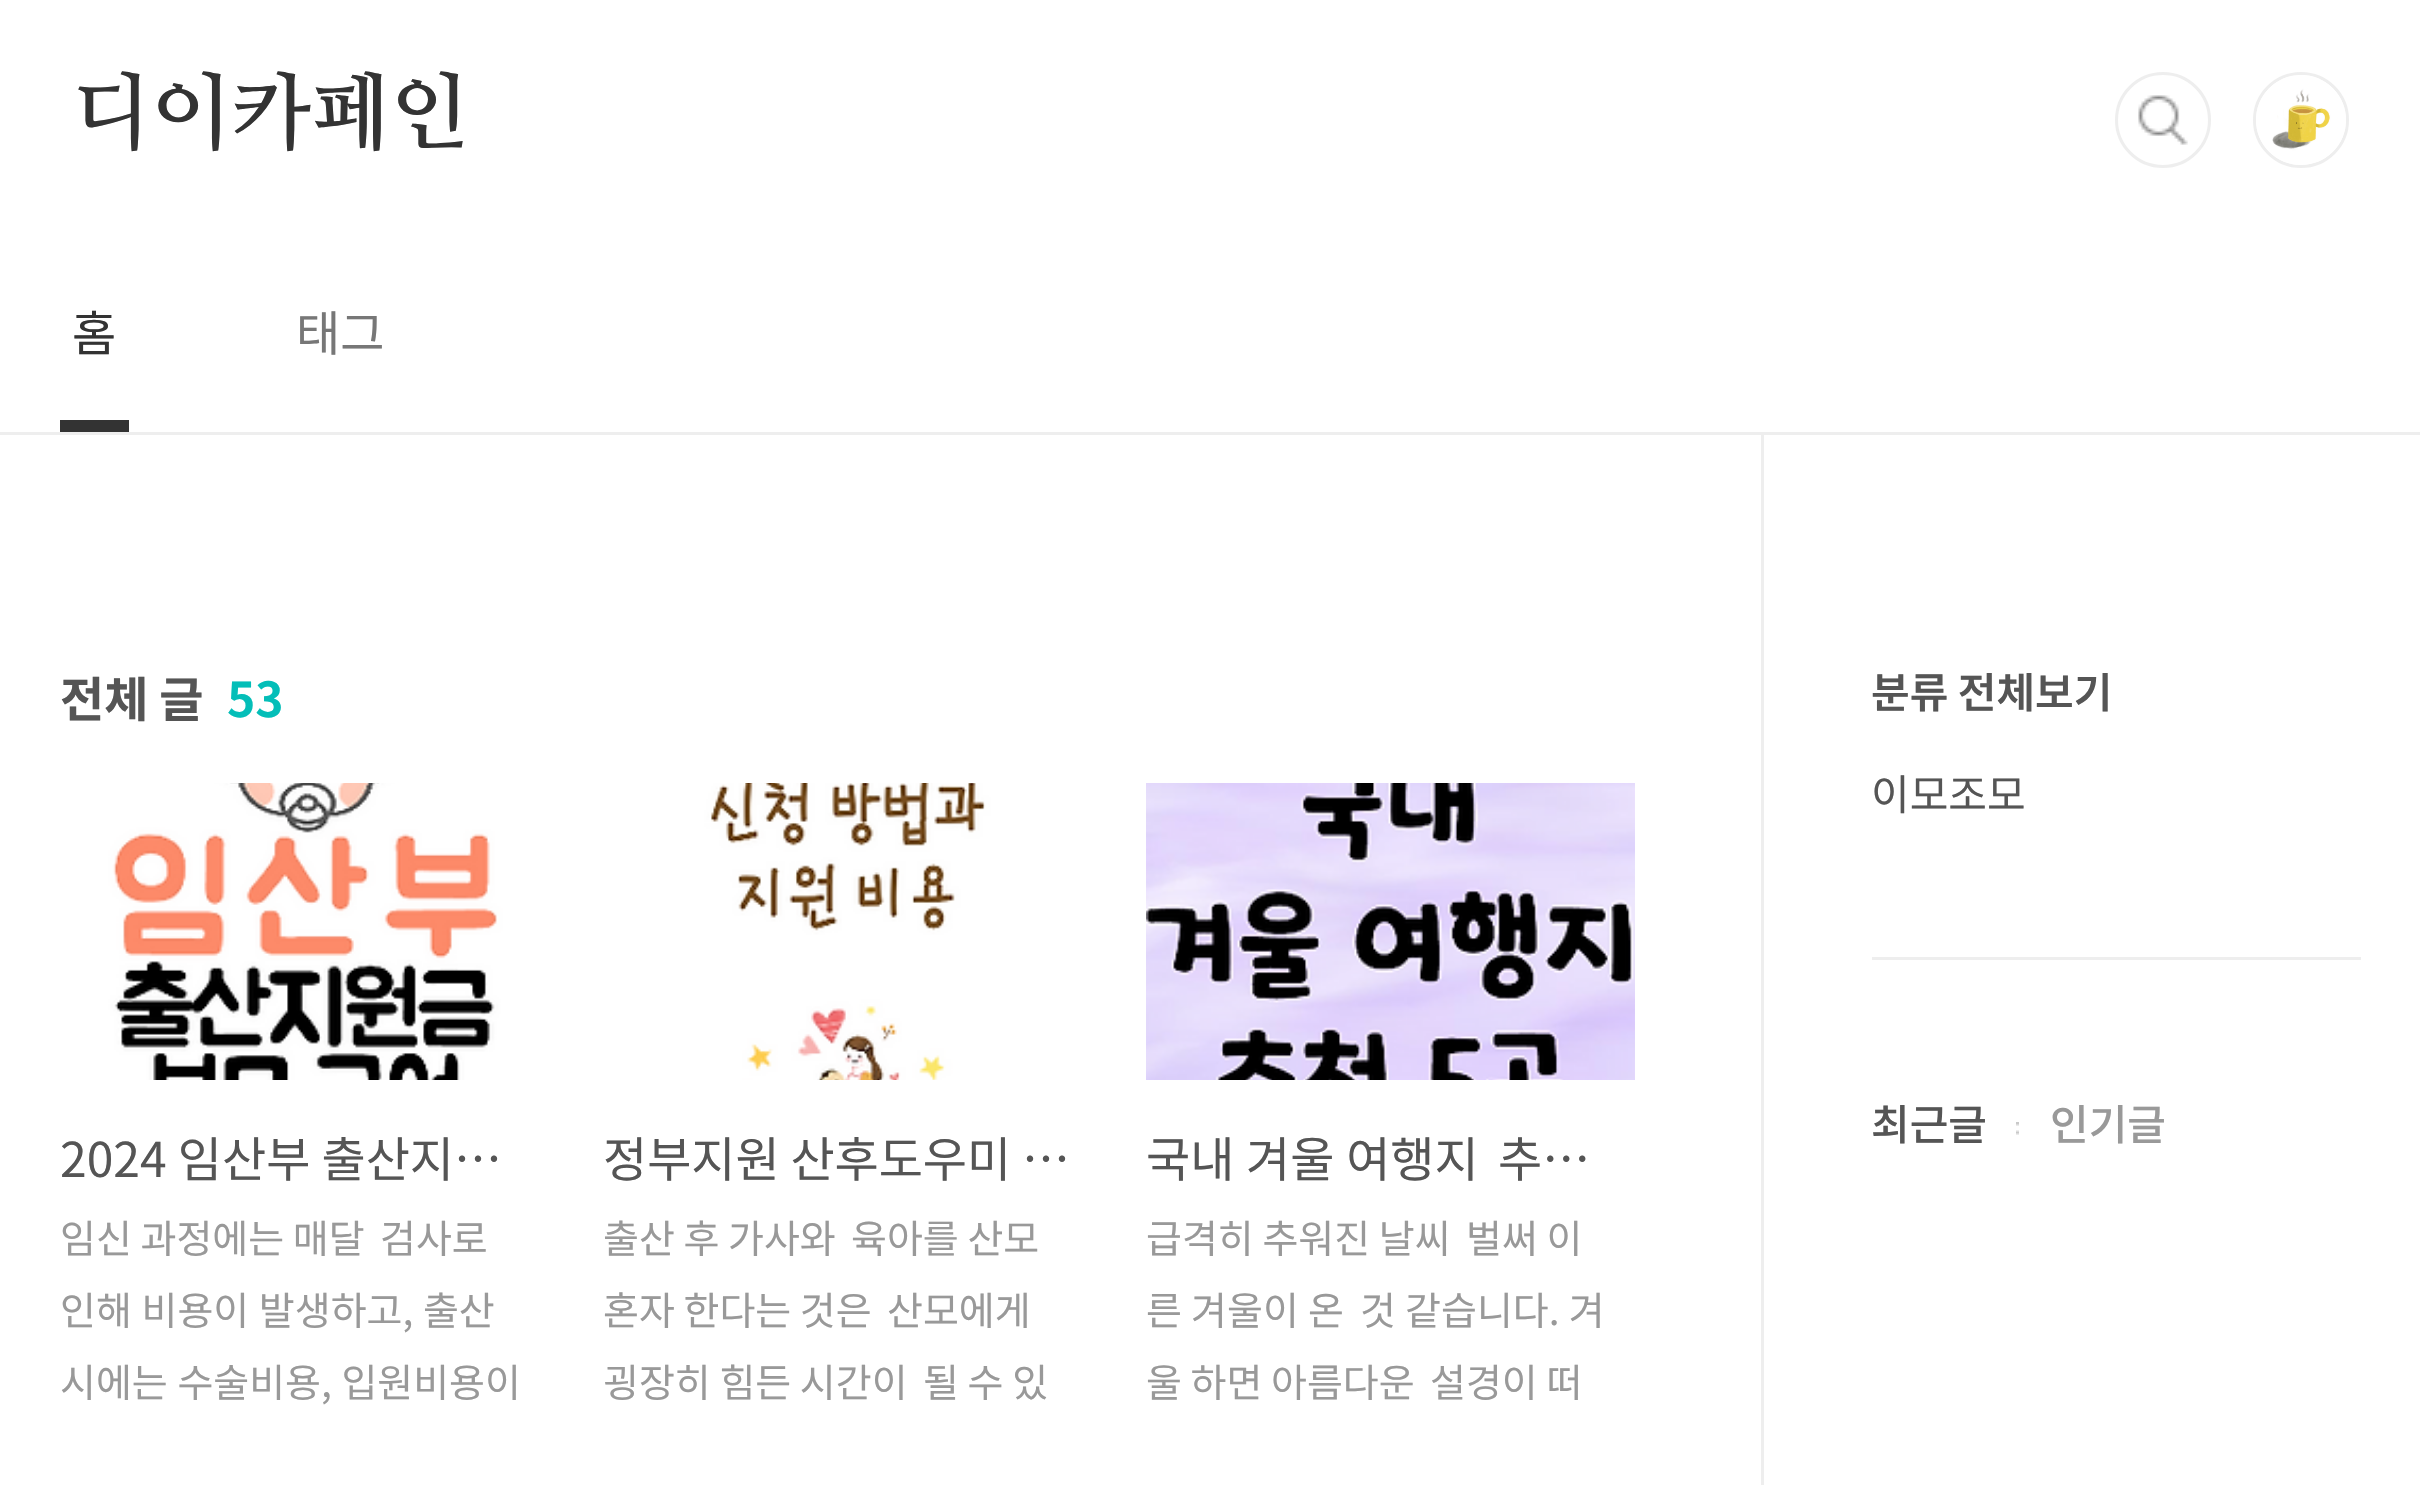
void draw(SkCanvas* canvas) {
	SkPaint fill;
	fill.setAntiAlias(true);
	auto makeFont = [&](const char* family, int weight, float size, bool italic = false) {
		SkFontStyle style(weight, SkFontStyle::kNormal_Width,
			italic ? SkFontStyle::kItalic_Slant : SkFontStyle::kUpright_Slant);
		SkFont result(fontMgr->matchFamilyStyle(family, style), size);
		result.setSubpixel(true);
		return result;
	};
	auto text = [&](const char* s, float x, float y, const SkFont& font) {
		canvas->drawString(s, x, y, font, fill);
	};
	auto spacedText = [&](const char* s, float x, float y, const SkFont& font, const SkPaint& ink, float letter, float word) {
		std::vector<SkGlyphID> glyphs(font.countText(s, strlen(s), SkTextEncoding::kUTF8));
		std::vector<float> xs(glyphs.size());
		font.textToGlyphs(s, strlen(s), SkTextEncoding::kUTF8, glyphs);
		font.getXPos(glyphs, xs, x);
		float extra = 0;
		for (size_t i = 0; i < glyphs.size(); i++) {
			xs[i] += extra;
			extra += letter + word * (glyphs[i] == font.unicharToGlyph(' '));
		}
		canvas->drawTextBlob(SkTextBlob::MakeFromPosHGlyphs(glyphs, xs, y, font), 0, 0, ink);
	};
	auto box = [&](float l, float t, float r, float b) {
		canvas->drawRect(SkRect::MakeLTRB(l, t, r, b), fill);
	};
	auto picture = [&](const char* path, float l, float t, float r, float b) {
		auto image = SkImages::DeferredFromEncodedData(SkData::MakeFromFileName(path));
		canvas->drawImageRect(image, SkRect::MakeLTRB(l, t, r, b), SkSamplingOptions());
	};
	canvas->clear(0xFFFFFFFF);
	fill.setColor(0xFFEEEEEE);
	box(0, 432, 2420, 435);
	picture("image0.png", 2138, 95, 2188, 145);
	fill.setStyle(SkPaint::kStroke_Style);
	fill.setStrokeWidth(3);
	canvas->drawCircle(2163, 120, 46.5f, fill);
	canvas->drawCircle(2301, 120, 46.5f, fill);
	picture("image1.png", 2256, 75, 2346, 165);
	fill.setStyle(SkPaint::kFill_Style);
	fill.setColor(0xFF333333);
	box(60, 420, 129, 432);
	picture("image2.png", 60, 783, 549, 1080);
	picture("image3.png", 603, 783, 1092, 1080);
	picture("image4.png", 1146, 783, 1635, 1080);
	fill.setColor(0xFFEEEEEE);
	box(1761, 435, 1764, 1485);
	box(1872, 957, 2361, 960);
	picture("image5.png", 2016, 1122, 2019, 1135);
	auto font1 = makeFont("NanumMyeongjo", 700, 84);
	fill.setColor(0xFF333333);
	spacedText("디이카페인", 72, 141, font1, fill, -0.5f, 0);
	auto font2 = makeFont("Noto Sans KR", 400, 48);
	text("홈", 72, 351, font2);
	fill.setColor(0xFF777777);
	text("태그", 296, 351, font2);
	auto font3 = makeFont("Noto Sans KR", 700, 48);
	fill.setColor(0xFF555555);
	text("전체 글", 60, 717, font3);
	fill.setColor(0xFF04BEB8);
	text("53", 227, 717, font3);
	fill.setColor(0xFF555555);
	spacedText("2024 임산부 출산지…", 60, 1177, font2, fill, 0, 0.5f);
	auto font4 = makeFont("Noto Sans KR", 400, 39);
	fill.setColor(0xFF999999);
	text("임신 과정에는 매달", 60, 1253, font4);
	text("검사로", 380, 1253, font4);
	spacedText("인해 비용이 발생하고, 출산", 60, 1325, font4, fill, 0, 1);
	spacedText("시에는 수술비용, 입원비용이", 60, 1397, font4, fill, 0, 1);
	fill.setColor(0xFF555555);
	text("정부지원 산후도우미 …", 603, 1177, font2);
	fill.setColor(0xFF999999);
	text("출산 후 가사와", 603, 1253, font4);
	text("육아를 산모", 851, 1253, font4);
	text("혼자 한다는 것은", 603, 1325, font4);
	text("산모에게", 887, 1325, font4);
	text("굉장히 힘든 시간이", 603, 1397, font4);
	text("될 수 있", 923, 1397, font4);
	fill.setColor(0xFF555555);
	spacedText("국내 겨울 여행지", 1146, 1177, font2, fill, 0, 1);
	spacedText("추…", 1498, 1177, font2, fill, 0, 1);
	fill.setColor(0xFF999999);
	text("급격히 추워진 날씨", 1146, 1253, font4);
	text("벌써 이", 1466, 1253, font4);
	spacedText("른 겨울이 온", 1146, 1325, font4, fill, 0, 0.5f);
	spacedText("것 같습니다. 겨", 1360, 1325, font4, fill, 0, 0.5f);
	text("울 하면 아름다운", 1146, 1397, font4);
	text("설경이 떠", 1430, 1397, font4);
	auto font5 = makeFont("Noto Sans KR", 600, 42);
	fill.setColor(0xFF555555);
	text("분류 전체보기", 1871, 708, font5);
	auto font6 = makeFont("Noto Sans KR", 400, 42);
	text("이모조모", 1871, 810, font6);
	auto font7 = makeFont("Noto Sans KR", 500, 42);
	text("최근글", 1871, 1140, font7);
	fill.setColor(0xFF999999);
	text("인기글", 2050, 1140, font7);
}
